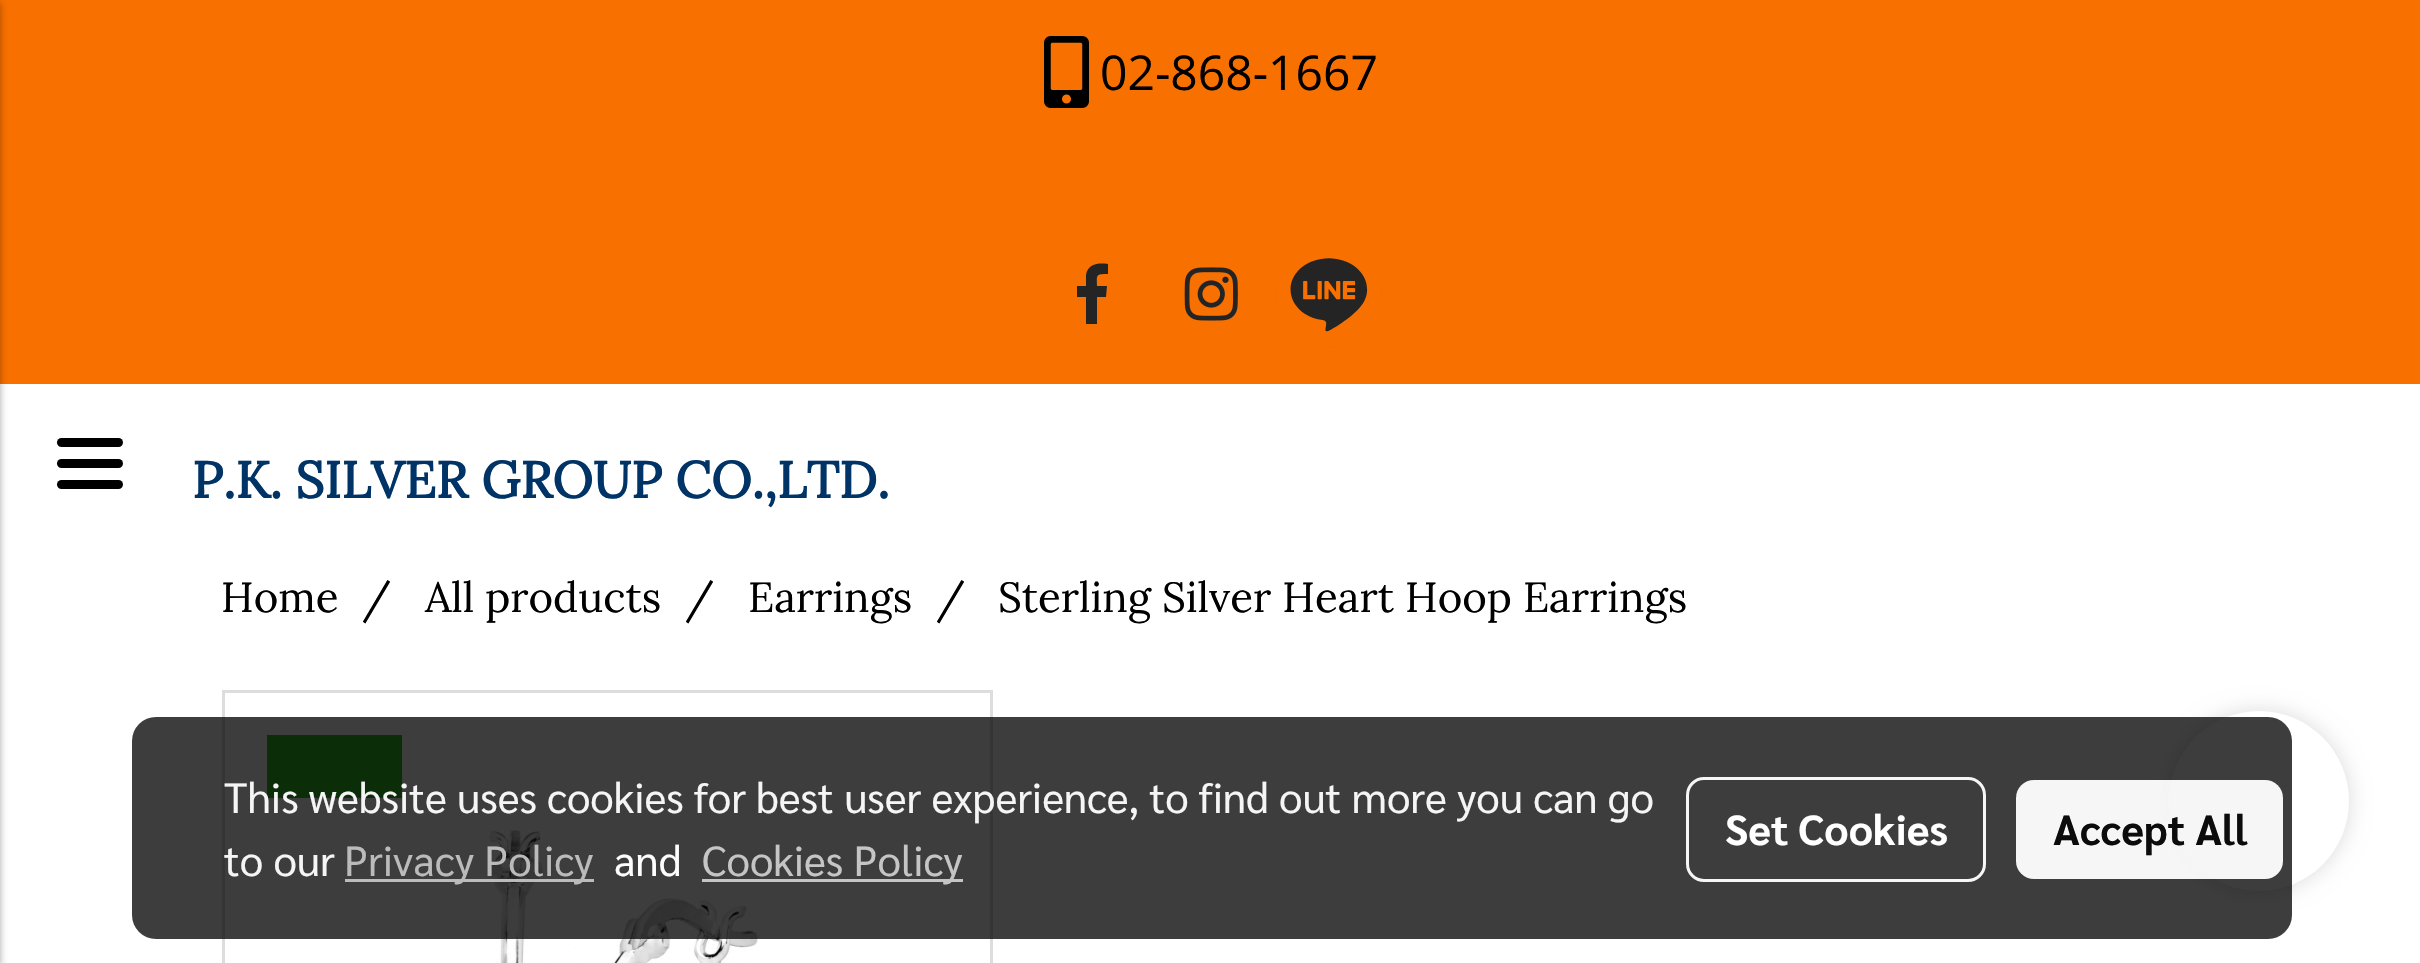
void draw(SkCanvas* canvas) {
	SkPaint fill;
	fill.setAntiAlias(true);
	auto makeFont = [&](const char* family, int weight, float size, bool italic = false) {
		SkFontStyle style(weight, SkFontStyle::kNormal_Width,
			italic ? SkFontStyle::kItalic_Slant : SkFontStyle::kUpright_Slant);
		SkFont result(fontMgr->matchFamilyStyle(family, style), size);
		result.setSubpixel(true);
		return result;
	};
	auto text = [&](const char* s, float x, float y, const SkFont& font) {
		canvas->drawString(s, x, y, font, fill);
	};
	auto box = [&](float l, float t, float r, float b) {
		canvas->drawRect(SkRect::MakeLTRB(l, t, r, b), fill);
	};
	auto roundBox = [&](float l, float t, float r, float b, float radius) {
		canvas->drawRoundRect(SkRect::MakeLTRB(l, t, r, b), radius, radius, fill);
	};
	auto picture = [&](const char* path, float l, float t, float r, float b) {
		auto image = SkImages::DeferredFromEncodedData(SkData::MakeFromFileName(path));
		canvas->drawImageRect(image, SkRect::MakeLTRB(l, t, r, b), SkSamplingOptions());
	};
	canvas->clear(0xFFFFFFFF);
	fill.setColor(0xFFF87000);
	box(0, 0, 2420, 384);
	picture("image0.png", 1044, 36, 1089, 108);
	fill.setColor(0xFF242424);
	canvas->drawPath(SkPathBuilder().moveTo(1086, 324).lineTo(1086, 297).lineTo(1077, 297).lineTo(1077, 286).lineTo(1086, 286).lineTo(1086, 275).cubicTo(1088, 263, 1099, 263, 1108, 264).lineTo(1108, 274).cubicTo(1095, 274, 1097, 275, 1097, 286).lineTo(1107, 286).lineTo(1106, 297).lineTo(1097, 297).lineTo(1097, 324).detach(), fill);
	picture("image1.png", 1184, 267, 1238, 321);
	picture("image2.png", 1276, 241, 1382, 347);
	fill.setColor(0x3D000000);
	fill.setMaskFilter(SkMaskFilter::MakeBlur(kNormal_SkBlurStyle, 3));
	canvas->drawRect(SkRect::MakeLTRB(-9, 3, 0, 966), fill);
	fill.setMaskFilter(nullptr);
	fill.setColor(0x1F000000);
	fill.setMaskFilter(SkMaskFilter::MakeBlur(kNormal_SkBlurStyle, 4.5f));
	canvas->drawRect(SkRect::MakeLTRB(-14, 3, 0, 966), fill);
	fill.setMaskFilter(nullptr);
	fill.setColor(0xFF000000);
	roundBox(57, 459, 123, 468, 4.5f);
	roundBox(57, 438, 123, 447, 4.5f);
	roundBox(57, 480, 123, 489, 4.5f);
	fill.setStyle(SkPaint::kStroke_Style);
	fill.setStrokeWidth(3);
	fill.setColor(0xFFDDDDDD);
	canvas->drawRect(SkRect::MakeLTRB(223.5f, 691.5f, 991.5f, 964.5f), fill);
	picture("image3.png", 490, 830, 758, 963);
	fill.setStyle(SkPaint::kFill_Style);
	fill.setColor(0xFF2BBE1F);
	box(267, 735, 402, 798);
	fill.setColor(0x24000000);
	fill.setMaskFilter(SkMaskFilter::MakeBlur(kNormal_SkBlurStyle, 10.5f));
	canvas->drawRoundRect(SkRect::MakeLTRB(2169, 711, 2349, 891), 90, 90, fill);
	fill.setMaskFilter(nullptr);
	fill.setColor(0xFFFFFFFF);
	canvas->drawCircle(2259, 801, 90, fill);
	fill.setColor(0xC2000000);
	roundBox(132, 717, 2292, 939, 24);
	fill.setColor(0xF2C2C2C2);
	box(345, 879, 594, 882);
	fill.setColor(0xFFC5C5C5);
	box(702, 879, 963, 882);
	fill.setStyle(SkPaint::kStroke_Style);
	fill.setColor(0xF2FFFFFF);
	canvas->drawRoundRect(SkRect::MakeLTRB(1687.5f, 778.5f, 1984.5f, 880.5f), 16.5f, 16.5f, fill);
	fill.setStyle(SkPaint::kFill_Style);
	roundBox(2016, 780, 2283, 879, 18);
	auto font1 = makeFont("Open Sans", 400, 48);
	fill.setColor(0xFF000000);
	text("02-868-1667", 1100, 90, font1);
	auto font2 = makeFont("Lora", 700, 51);
	fill.setColor(0xFF003366);
	text("P.K. SILVER GROUP CO.,LTD.", 192, 498, font2);
	auto font3 = makeFont("Lora", 400, 42);
	fill.setColor(0xFF000000);
	text("Home", 221, 612, font3);
	text("/", 362, 612, font3);
	text("All products", 425, 612, font3);
	text("/", 685, 612, font3);
	text("Earrings", 748, 612, font3);
	text("/", 936, 612, font3);
	text("Sterling Silver Heart Hoop Earrings", 998, 612, font3);
	auto font4 = makeFont("Sarabun", 400, 42);
	fill.setColor(0xFFF5F5F5);
	text("This website uses cookies for best user experience, to find out more you can go", 224, 813, font4);
	text("to our", 224, 876, font4);
	fill.setColor(0xFFBBBBBB);
	text("Privacy Policy", 344, 876, font4);
	fill.setColor(0xFFFFFFFF);
	text("and", 614, 876, font4);
	fill.setColor(0xFFC5C5C5);
	text("Cookies Policy", 702, 876, font4);
	auto font5 = makeFont("Sarabun", 700, 42);
	fill.setColor(0xFFFFFFFF);
	text("Set Cookies", 1725, 845, font5);
	fill.setColor(0xFF0C0C0C);
	text("Accept All", 2053, 845, font5);
}
